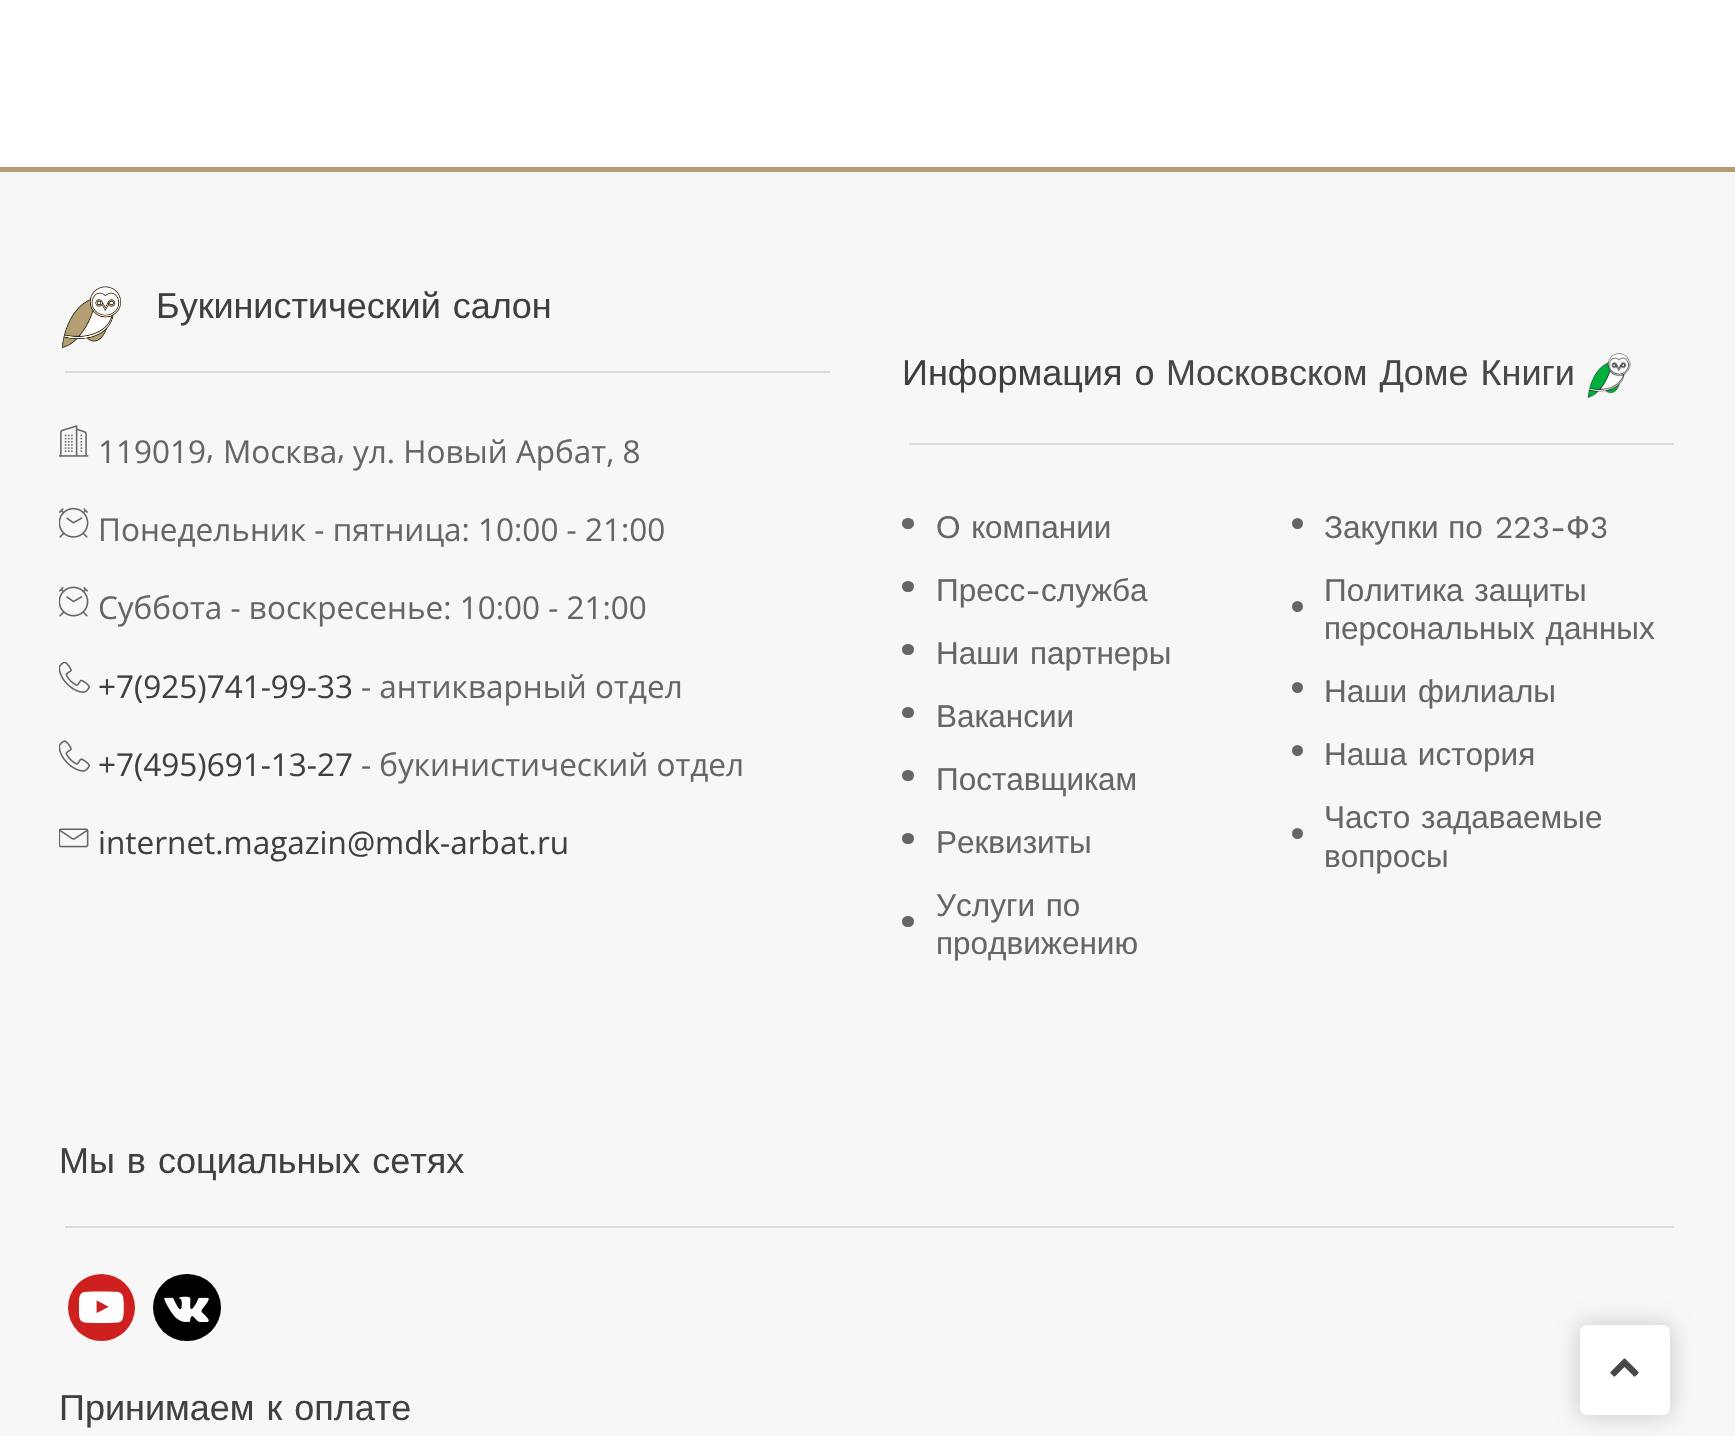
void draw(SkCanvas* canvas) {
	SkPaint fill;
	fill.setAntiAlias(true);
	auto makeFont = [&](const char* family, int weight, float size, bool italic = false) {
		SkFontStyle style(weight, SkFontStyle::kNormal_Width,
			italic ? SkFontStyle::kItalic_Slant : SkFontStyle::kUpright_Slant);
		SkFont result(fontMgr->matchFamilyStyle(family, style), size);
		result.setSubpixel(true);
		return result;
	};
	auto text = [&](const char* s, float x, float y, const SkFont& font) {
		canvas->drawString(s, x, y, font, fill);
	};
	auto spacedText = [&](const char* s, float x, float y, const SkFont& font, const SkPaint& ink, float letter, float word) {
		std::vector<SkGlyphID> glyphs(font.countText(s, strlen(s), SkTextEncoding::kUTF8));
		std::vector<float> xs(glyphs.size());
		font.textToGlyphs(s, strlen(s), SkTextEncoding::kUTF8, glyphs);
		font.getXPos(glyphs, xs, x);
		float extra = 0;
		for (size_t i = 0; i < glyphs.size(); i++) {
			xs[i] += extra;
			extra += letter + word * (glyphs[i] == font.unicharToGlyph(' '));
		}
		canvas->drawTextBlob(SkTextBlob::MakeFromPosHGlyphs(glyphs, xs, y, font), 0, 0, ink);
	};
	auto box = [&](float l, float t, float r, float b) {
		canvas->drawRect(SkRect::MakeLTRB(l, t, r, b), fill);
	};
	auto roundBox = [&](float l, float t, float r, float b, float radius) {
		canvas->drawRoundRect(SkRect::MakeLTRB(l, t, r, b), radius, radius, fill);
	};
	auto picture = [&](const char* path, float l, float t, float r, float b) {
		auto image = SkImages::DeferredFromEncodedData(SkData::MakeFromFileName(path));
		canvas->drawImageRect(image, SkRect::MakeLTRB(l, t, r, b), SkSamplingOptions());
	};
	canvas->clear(0xFFFFFFFF);
	fill.setColor(0xFFF7F7F7);
	box(0, 172, 1735, 1436);
	fill.setColor(0xFFB49E74);
	box(0, 167, 1735, 172);
	fill.setColor(0xFFDBDBDB);
	box(65, 371, 830, 373);
	picture("image0.png", 62, 286, 121, 348);
	picture("image1.png", 59, 425, 89, 457);
	picture("image2.png", 59, 507, 89, 538);
	picture("image3.png", 59, 586, 89, 617);
	picture("image4.png", 59, 662, 90, 693);
	picture("image5.png", 59, 740, 90, 772);
	picture("image6.png", 59, 828, 89, 848);
	box(909, 443, 1674, 445);
	picture("image7.png", 1587, 353, 1631, 398);
	fill.setColor(0xFF666666);
	roundBox(902, 518, 914, 529, 5.5f);
	roundBox(902, 581, 914, 592, 5.5f);
	roundBox(902, 644, 914, 655, 5.5f);
	roundBox(902, 707, 914, 718, 5.5f);
	roundBox(902, 770, 914, 781, 5.5f);
	roundBox(902, 833, 914, 844, 5.5f);
	roundBox(902, 916, 914, 927, 5.5f);
	canvas->drawCircle(1297.5f, 523.5f, 5.5f, fill);
	canvas->drawCircle(1297.5f, 606.5f, 5.5f, fill);
	canvas->drawCircle(1297.5f, 687.5f, 5.5f, fill);
	canvas->drawCircle(1297.5f, 750.5f, 5.5f, fill);
	canvas->drawCircle(1297.5f, 833.5f, 5.5f, fill);
	fill.setColor(0xFFDBDBDB);
	box(65, 1226, 1674, 1228);
	fill.setColor(0xFFCD201F);
	canvas->drawCircle(101.5f, 1307.5f, 33.5f, fill);
	picture("image8.png", 79, 1291, 124, 1324);
	fill.setColor(0xFF000000);
	roundBox(153, 1274, 221, 1341, 33.5f);
	picture("image9.png", 164, 1296, 209, 1323);
	fill.setColor(0x33000000);
	fill.setMaskFilter(SkMaskFilter::MakeBlur(kNormal_SkBlurStyle, 11));
	canvas->drawRoundRect(SkRect::MakeLTRB(1580, 1325, 1670, 1415), 7, 7, fill);
	fill.setMaskFilter(nullptr);
	fill.setColor(0xFFFFFFFF);
	roundBox(1580, 1325, 1670, 1415, 7);
	picture("image10.png", 1610, 1358, 1639, 1377);
	auto font1 = makeFont("Liberation Sans", 400, 36);
	fill.setColor(0xFF404040);
	spacedText("Букинистический салон", 156, 318, font1, fill, 0, 2);
	auto font2 = makeFont("Open Sans", 400, 31.5f);
	fill.setColor(0xFF666666);
	text("119019", 98, 463, font2);
	text(",", 206, 459, font2);
	text("Москва", 223, 463, font2);
	text(",", 337, 459, font2);
	text("ул. Новый Арбат, 8", 353, 463, font2);
	text("Понедельник - пятница: 10:00 - 21:00", 98, 541, font2);
	text("Суббота - воскресенье: 10:00 - 21:00", 98, 619, font2);
	fill.setColor(0xFF404040);
	text("+7(925)741-99-33", 98, 698, font2);
	fill.setColor(0xFF666666);
	text("- антикварный отдел", 361, 698, font2);
	fill.setColor(0xFF404040);
	text("+7(495)691-13-27", 98, 776, font2);
	fill.setColor(0xFF666666);
	text("- букинистический отдел", 361, 776, font2);
	fill.setColor(0xFF404040);
	text("internet.magazin@mdk-arbat.ru", 98, 854, font2);
	spacedText("Информация о", 902, 385, font1, fill, 0, 2);
	fill.setColor(0xFF484848);
	spacedText("Московском Доме Книги", 1166, 385, font1, fill, 0, 2);
	auto font3 = makeFont("Liberation Sans", 400, 31.5f);
	fill.setColor(0xFF666666);
	spacedText("О компании", 936, 538, font3, fill, 0, 2);
	text("Пресс", 936, 601, font3);
	auto font4 = makeFont("Work Sans", 400, 31.5f);
	text("-", 1025, 601, font4);
	text("служба", 1041, 601, font3);
	spacedText("Наши партнеры", 936, 664, font3, fill, 0, 2);
	text("Вакансии", 936, 727, font3);
	text("Поставщикам", 936, 790, font3);
	text("Реквизиты", 936, 853, font3);
	spacedText("Услуги по", 936, 916, font3, fill, 0, 2);
	text("продвижению", 936, 954, font3);
	spacedText("Закупки по", 1324, 538, font3, fill, 0, 1);
	text("223-", 1495, 538, font4);
	text("Ф", 1566, 538, font3);
	text("3", 1590, 538, font4);
	spacedText("Политика защиты", 1324, 601, font3, fill, 0, 2);
	spacedText("персональных данных", 1324, 639, font3, fill, 0, 2);
	spacedText("Наши филиалы", 1324, 702, font3, fill, 0, 2);
	spacedText("Наша история", 1324, 765, font3, fill, 0, 2);
	spacedText("Часто задаваемые", 1324, 828, font3, fill, 0, 2);
	text("вопросы", 1324, 867, font3);
	fill.setColor(0xFF404040);
	spacedText("Мы в социальных сетях", 59, 1173, font1, fill, 0, 2);
	spacedText("Принимаем к оплате", 59, 1420, font1, fill, 0, 2);
}
